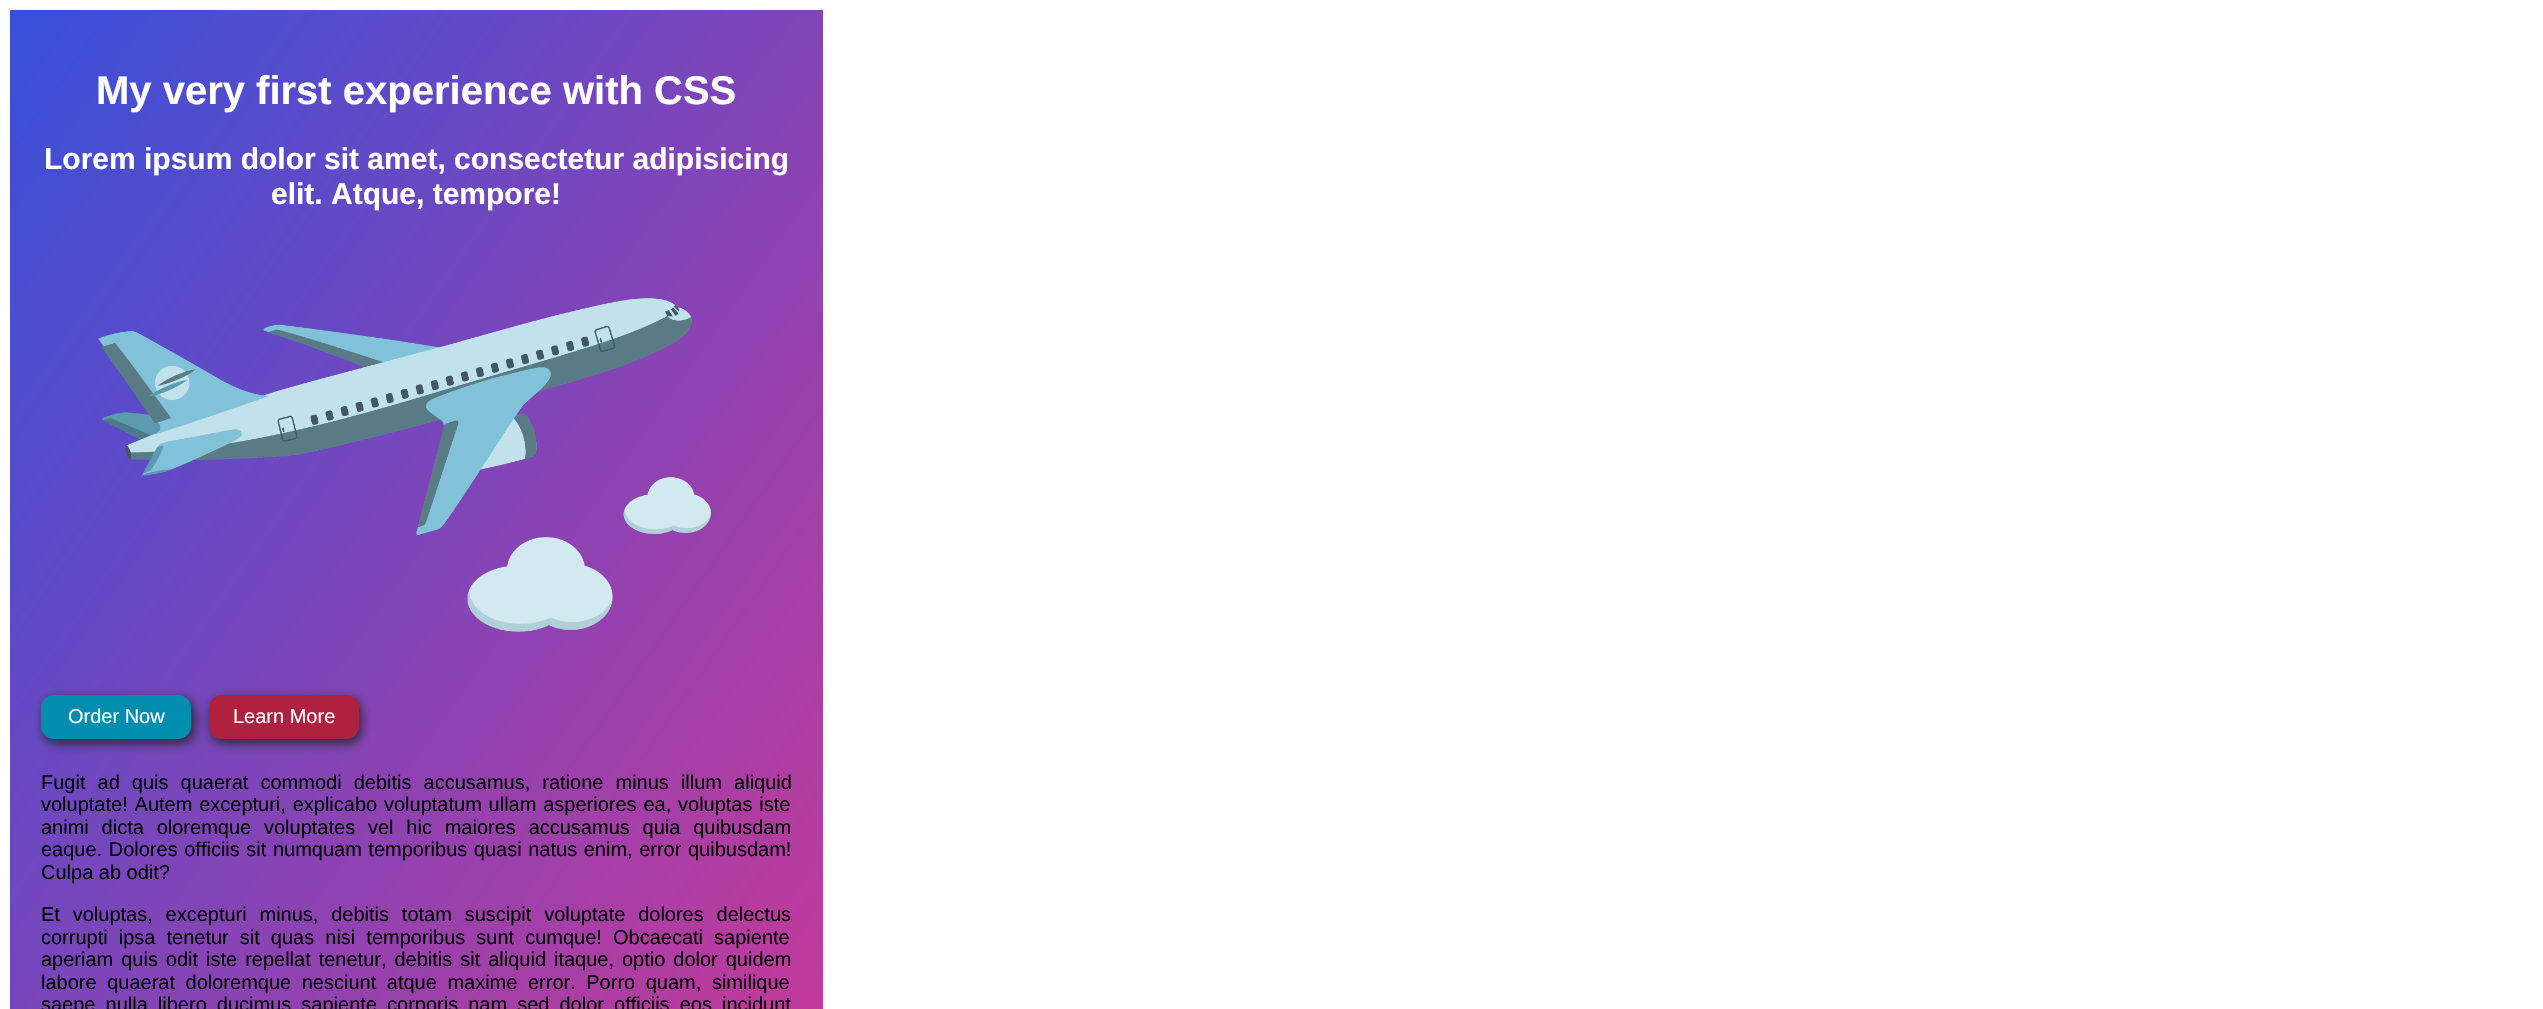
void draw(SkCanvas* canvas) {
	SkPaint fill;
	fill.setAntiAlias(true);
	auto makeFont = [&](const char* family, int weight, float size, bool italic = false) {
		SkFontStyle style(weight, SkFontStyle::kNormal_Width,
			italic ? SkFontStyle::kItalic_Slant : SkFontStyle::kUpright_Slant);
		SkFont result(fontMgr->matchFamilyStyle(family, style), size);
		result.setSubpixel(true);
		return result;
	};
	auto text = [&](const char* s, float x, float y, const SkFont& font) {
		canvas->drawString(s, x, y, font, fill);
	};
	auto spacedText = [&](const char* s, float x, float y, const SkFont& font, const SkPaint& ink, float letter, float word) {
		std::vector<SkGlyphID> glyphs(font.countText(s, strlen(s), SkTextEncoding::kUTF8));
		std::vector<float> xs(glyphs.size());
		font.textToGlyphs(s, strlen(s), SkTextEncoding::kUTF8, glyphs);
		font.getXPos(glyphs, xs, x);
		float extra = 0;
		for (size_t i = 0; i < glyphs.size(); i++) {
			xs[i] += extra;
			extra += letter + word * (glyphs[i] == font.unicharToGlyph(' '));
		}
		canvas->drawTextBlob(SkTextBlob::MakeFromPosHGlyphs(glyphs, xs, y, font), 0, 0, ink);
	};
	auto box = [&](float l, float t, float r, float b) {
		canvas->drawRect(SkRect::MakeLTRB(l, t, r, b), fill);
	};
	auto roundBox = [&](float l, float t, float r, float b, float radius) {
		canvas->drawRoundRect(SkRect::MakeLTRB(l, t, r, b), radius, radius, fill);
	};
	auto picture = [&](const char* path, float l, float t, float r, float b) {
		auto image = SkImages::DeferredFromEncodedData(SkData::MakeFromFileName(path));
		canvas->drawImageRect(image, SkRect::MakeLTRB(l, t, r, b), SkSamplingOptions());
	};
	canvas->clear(0xFFFFFFFF);
	{
		const SkColor colors[] = {0xFF3651D9, 0xFFCF3894};
		const float stops[] = {0, 1};
		const SkPoint ends[] = {{-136, 219}, {969, 993}};
		fill.setShader(SkGradientShader::MakeLinear(ends, colors, stops, 2, SkTileMode::kClamp));
		fill.setAlpha(255);
	}
	box(10, 10, 823, 1009);
	picture("image0.png", 98, 298, 711, 632);
	fill.setShader(nullptr);
	fill.setColor(0xFF242629);
	fill.setMaskFilter(SkMaskFilter::MakeBlur(kNormal_SkBlurStyle, 6));
	canvas->drawRoundRect(SkRect::MakeLTRB(44, 699, 194, 743), 13, 13, fill);
	fill.setMaskFilter(nullptr);
	fill.setColor(0xFF008EB0);
	roundBox(41, 695, 191, 739, 13);
	fill.setColor(0xFF242629);
	fill.setMaskFilter(SkMaskFilter::MakeBlur(kNormal_SkBlurStyle, 6));
	canvas->drawRoundRect(SkRect::MakeLTRB(211, 699, 361, 743), 13, 13, fill);
	fill.setMaskFilter(nullptr);
	fill.setColor(0xFFAF213F);
	roundBox(209, 695, 359, 739, 13);
	auto font1 = makeFont("Liberation Sans", 700, 40);
	fill.setColor(0xFFFFFFFF);
	text("My very first experience with CSS", 96, 104, font1);
	auto font2 = makeFont("Liberation Sans", 700, 30);
	text("Lorem ipsum dolor sit amet, consectetur adipisicing", 44, 169, font2);
	text("elit. Atque, tempore!", 271, 204, font2);
	auto font3 = makeFont("Liberation Sans", 400, 20);
	text("Order Now", 68, 723, font3);
	text("Learn More", 233, 723, font3);
	fill.setColor(0xFF000000);
	spacedText("Fugit ad quis quaerat commodi debitis accusamus, ratione minus illum aliquid", 41, 789, font3, fill, 0, 6.5f);
	spacedText("voluptate! Autem excepturi, explicabo voluptatum ullam asperiores ea, voluptas iste", 41, 811, font3, fill, 0, 1.25f);
	spacedText("animi dicta oloremque voluptates vel hic maiores accusamus quia quibusdam", 41, 834, font3, fill, 0, 7.25f);
	spacedText("eaque. Dolores officiis sit numquam temporibus quasi natus enim, error quibusdam!", 41, 856, font3, fill, 0, 1);
	text("Culpa ab odit?", 41, 879, font3);
	spacedText("Et voluptas, excepturi minus, debitis totam suscipit voluptate dolores delectus", 41, 921, font3, fill, 0, 7.25f);
	spacedText("corrupti ipsa tenetur sit quas nisi temporibus sunt cumque! Obcaecati sapiente", 41, 944, font3, fill, 0, 5.5f);
	spacedText("aperiam quis odit iste repellat tenetur, debitis sit aliquid itaque, optio dolor quidem", 41, 966, font3, fill, 0, 2.4f);
	spacedText("labore quaerat doloremque nesciunt atque maxime error. Porro quam, similique", 41, 989, font3, fill, 0, 5);
	spacedText("saepe nulla libero ducimus sapiente corporis nam sed dolor officiis eos incidunt", 41, 1011, font3, fill, 0, 4.5f);
}
